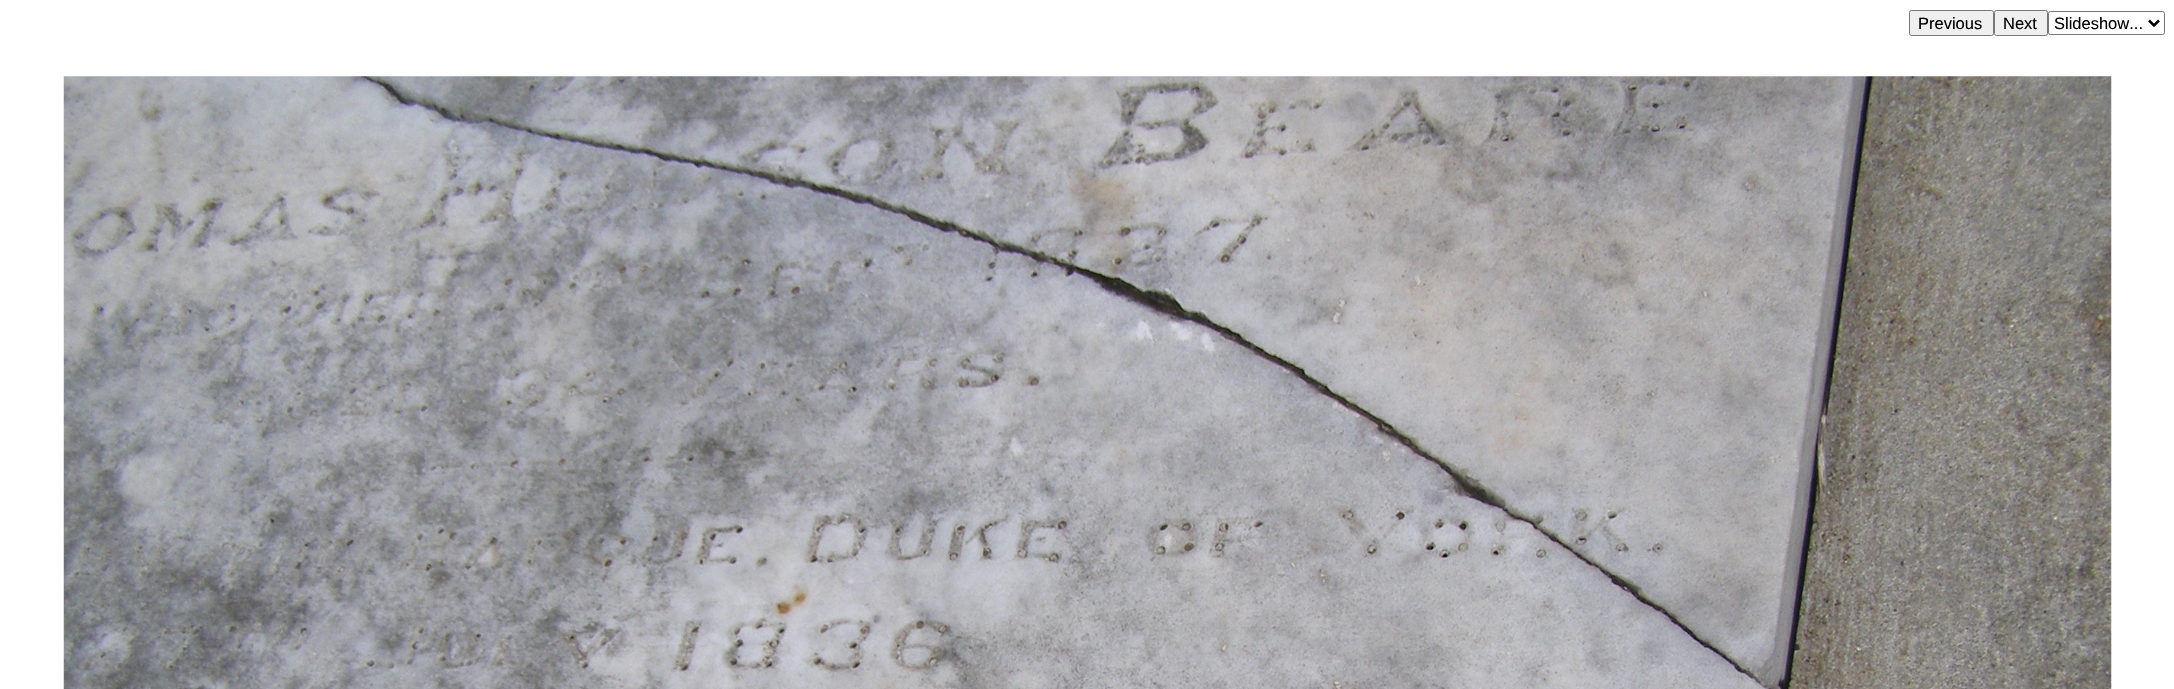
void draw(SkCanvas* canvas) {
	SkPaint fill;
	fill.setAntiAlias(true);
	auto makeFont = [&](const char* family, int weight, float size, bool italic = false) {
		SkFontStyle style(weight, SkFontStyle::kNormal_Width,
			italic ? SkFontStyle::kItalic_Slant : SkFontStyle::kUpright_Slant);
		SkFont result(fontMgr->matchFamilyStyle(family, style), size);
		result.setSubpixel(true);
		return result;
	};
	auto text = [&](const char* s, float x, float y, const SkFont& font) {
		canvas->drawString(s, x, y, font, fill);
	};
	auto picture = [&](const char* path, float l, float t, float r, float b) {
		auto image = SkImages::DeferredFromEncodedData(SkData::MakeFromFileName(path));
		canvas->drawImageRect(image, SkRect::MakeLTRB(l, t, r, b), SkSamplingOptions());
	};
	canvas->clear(0xFFFFFFFF);
	fill.setColor(0xFFEFEFEF);
	canvas->drawRoundRect(SkRect::MakeLTRB(1909.5f, 10.5f, 1993.5f, 35.5f), 2, 2, fill);
	fill.setStyle(SkPaint::kStroke_Style);
	fill.setStrokeWidth(1);
	fill.setColor(0xFF767676);
	canvas->drawRoundRect(SkRect::MakeLTRB(1909.5f, 10.5f, 1993.5f, 35.5f), 2, 2, fill);
	fill.setStyle(SkPaint::kFill_Style);
	fill.setColor(0xFFEFEFEF);
	canvas->drawRoundRect(SkRect::MakeLTRB(1994.5f, 10.5f, 2047.5f, 35.5f), 2, 2, fill);
	fill.setStyle(SkPaint::kStroke_Style);
	fill.setColor(0xFF767676);
	canvas->drawRoundRect(SkRect::MakeLTRB(1994.5f, 10.5f, 2047.5f, 35.5f), 2, 2, fill);
	canvas->drawRoundRect(SkRect::MakeLTRB(2048.5f, 11.5f, 2164.5f, 34.5f), 2, 2, fill);
	fill.setStrokeWidth(2.5f);
	fill.setColor(0xFF000000);
	canvas->drawPath(SkPathBuilder().moveTo(2149, 20.5f).lineTo(2154, 25.5f).lineTo(2159, 20.5f).detach(), fill);
	picture("image0.png", 63, 76, 2112, 689);
	auto font1 = makeFont("Liberation Sans", 400, 16.5f);
	fill.setStyle(SkPaint::kFill_Style);
	text("Previous", 1918, 29, font1);
	text("Next", 2003, 29, font1);
	text("Slideshow...", 2054, 29, font1);
}
